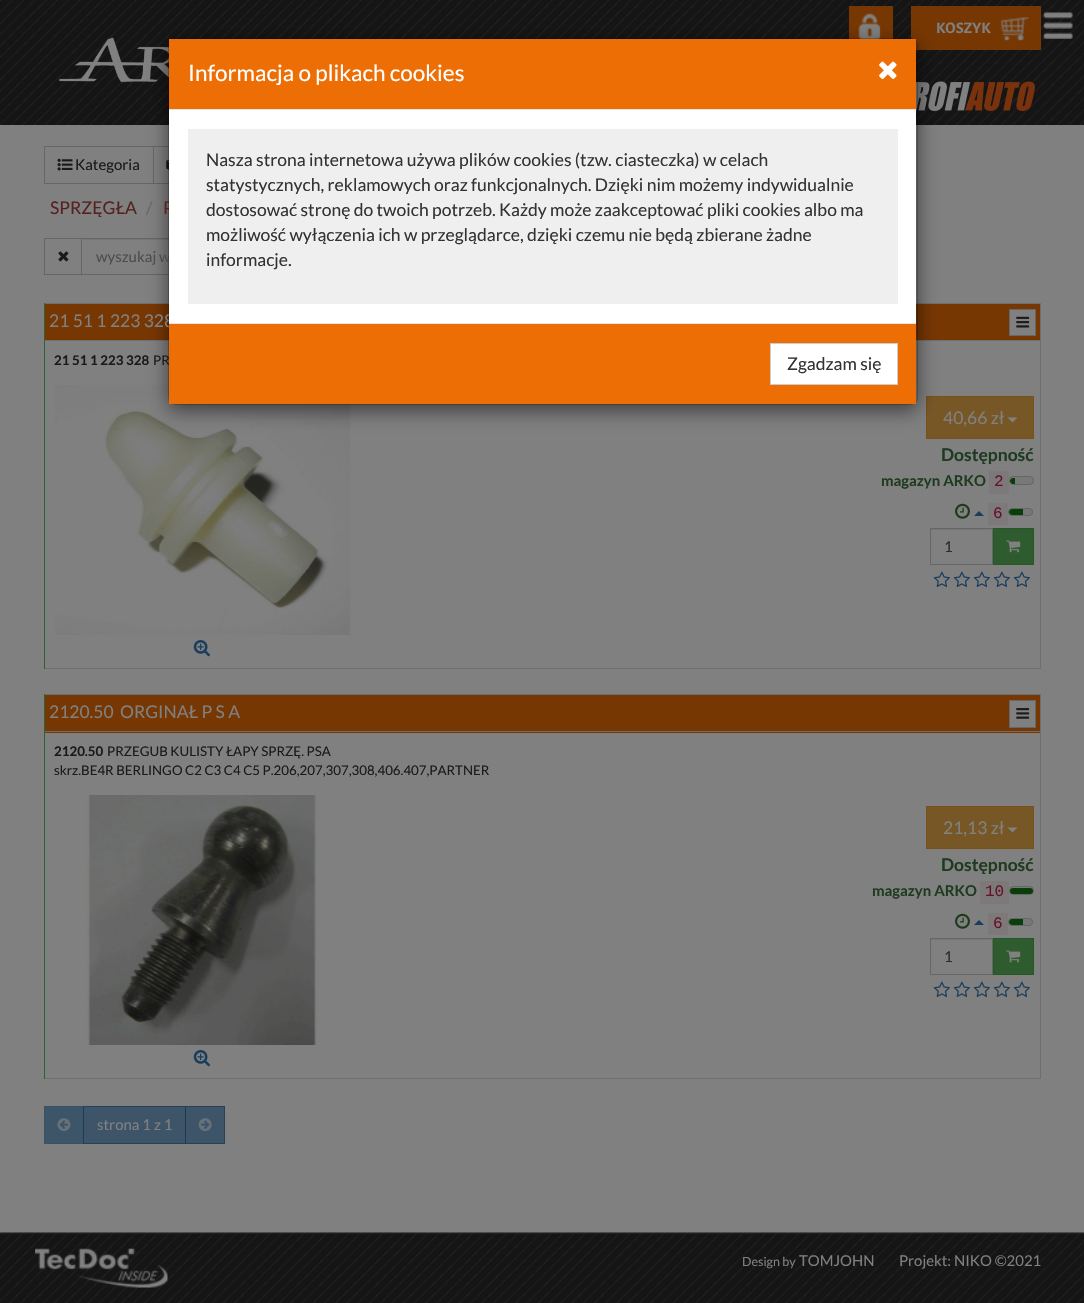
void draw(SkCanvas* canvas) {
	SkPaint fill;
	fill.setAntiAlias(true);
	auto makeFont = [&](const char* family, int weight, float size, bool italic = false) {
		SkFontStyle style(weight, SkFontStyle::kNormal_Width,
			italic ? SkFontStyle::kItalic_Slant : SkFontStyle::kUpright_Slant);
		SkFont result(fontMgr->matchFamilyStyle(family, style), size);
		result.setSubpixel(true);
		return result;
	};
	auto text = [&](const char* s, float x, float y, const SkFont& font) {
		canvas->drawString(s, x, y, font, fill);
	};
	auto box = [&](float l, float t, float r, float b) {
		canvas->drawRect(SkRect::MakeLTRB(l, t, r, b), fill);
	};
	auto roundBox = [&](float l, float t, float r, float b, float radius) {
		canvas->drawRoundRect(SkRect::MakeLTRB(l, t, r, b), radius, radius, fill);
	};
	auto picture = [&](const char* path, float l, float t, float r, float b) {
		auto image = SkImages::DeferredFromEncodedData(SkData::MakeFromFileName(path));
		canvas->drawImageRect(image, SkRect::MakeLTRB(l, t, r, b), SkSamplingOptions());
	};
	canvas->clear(0xFF808080);
	picture("image0.png", 0, 0, 1084, 125);
	fill.setColor(0xFF773703);
	box(849, 6, 893, 39);
	picture("image1.png", 858, 13, 881, 39);
	box(911, 6, 1041, 50);
	picture("image2.png", 1001, 17, 1029, 41);
	picture("image3.png", 58, 37, 169, 83);
	picture("image4.png", 916, 81, 1035, 111);
	picture("image5.png", 1043, 12, 1073, 39);
	fill.setStyle(SkPaint::kStroke_Style);
	fill.setStrokeWidth(1);
	fill.setColor(0xFF666666);
	canvas->drawRect(SkRect::MakeLTRB(44.5f, 146.5f, 153.5f, 183.5f), fill);
	canvas->drawRect(SkRect::MakeLTRB(153.5f, 146.5f, 267.5f, 183.5f), fill);
	picture("image8.png", 166, 159, 169, 170);
	fill.setStyle(SkPaint::kFill_Style);
	fill.setColor(0xFF767676);
	box(83, 239, 169, 240);
	fill.setStyle(SkPaint::kStroke_Style);
	fill.setColor(0xFF666666);
	canvas->drawRect(SkRect::MakeLTRB(44.5f, 238.5f, 82.5f, 274.5f), fill);
	fill.setStyle(SkPaint::kFill_Style);
	fill.setColor(0xFF808080);
	box(82, 239, 83, 274);
	fill.setStyle(SkPaint::kStroke_Style);
	fill.setColor(0xFF666666);
	canvas->drawRect(SkRect::MakeLTRB(81.5f, 238.5f, 275.5f, 274.5f), fill);
	fill.setStyle(SkPaint::kFill_Style);
	fill.setColor(0xFF6F6F6F);
	box(44, 303, 1041, 304);
	fill.setColor(0xFF773703);
	box(45, 304, 1040, 340);
	fill.setColor(0xFF6F6F6F);
	box(45, 340, 1040, 341);
	picture("image11.png", 55, 385, 351, 635);
	fill.setColor(0xFF785727);
	canvas->drawRect(SkRect::MakeLTRB(926.5f, 396.5f, 1033.5f, 438.5f), fill);
	fill.setStyle(SkPaint::kStroke_Style);
	fill.setColor(0xFF77511B);
	canvas->drawRect(SkRect::MakeLTRB(926.5f, 396.5f, 1033.5f, 438.5f), fill);
	fill.setStyle(SkPaint::kFill_Style);
	fill.setColor(0x80000000);
	fill.setMaskFilter(SkMaskFilter::MakeBlur(kNormal_SkBlurStyle, 9.5f));
	canvas->drawRoundRect(SkRect::MakeLTRB(168, 44, 918, 411), 8, 8, fill);
	fill.setMaskFilter(nullptr);
	picture("image7.png", 57, 158, 73, 171);
	picture("image9.png", 58, 251, 69, 262);
	fill.setColor(0xFF6F6F6F);
	box(1040, 303, 1041, 669);
	box(44, 668, 1041, 669);
	fill.setColor(0xFF316231);
	box(44, 303, 45, 669);
	fill.setColor(0xFF808080);
	canvas->drawRect(SkRect::MakeLTRB(1009.5f, 309.5f, 1035.5f, 335.5f), fill);
	fill.setStyle(SkPaint::kStroke_Style);
	fill.setColor(0xFF666666);
	canvas->drawRect(SkRect::MakeLTRB(1009.5f, 309.5f, 1035.5f, 335.5f), fill);
	picture("image10.png", 1016, 316, 1030, 328);
	picture("image12.png", 193, 640, 210, 657);
	fill.setStyle(SkPaint::kFill_Style);
	fill.setColor(0xFF808080);
	canvas->drawPath(SkPathBuilder().moveTo(1007.5f, 417.5f).lineTo(1017.5f, 417.5f).lineTo(1012.5f, 422.5f).close().detach(), fill);
	fill.setColor(0xFF7D797A);
	box(989, 471, 1009, 494);
	fill.setColor(0xFF787878);
	roundBox(1009, 476, 1034, 485, 4.5f);
	fill.setStyle(SkPaint::kStroke_Style);
	fill.setColor(0x4D3B3B3B);
	canvas->drawRoundRect(SkRect::MakeLTRB(1009.5f, 476.5f, 1033.5f, 484.5f), 4, 4, fill);
	fill.setStyle(SkPaint::kFill_Style);
	fill.setColor(0xFF083E08);
	canvas->drawPath(SkPathBuilder().moveTo(1013, 478).lineTo(1015, 478).lineTo(1015, 484).lineTo(1013, 484).cubicTo(1011.5f, 484, 1010, 482.5f, 1010, 481).cubicTo(1010, 479.5f, 1011.5f, 478, 1013, 478).close().detach(), fill);
	picture("image13.png", 955, 503, 970, 519);
	fill.setColor(0xFF1A3D5C);
	canvas->drawPath(SkPathBuilder().moveTo(984, 516).lineTo(974, 516).lineTo(979, 511).close().detach(), fill);
	fill.setColor(0xFF7D797A);
	box(988, 503, 1008, 525);
	fill.setColor(0xFF787878);
	roundBox(1008, 508, 1033, 516, 4);
	fill.setStyle(SkPaint::kStroke_Style);
	fill.setColor(0x4D3B3B3B);
	canvas->drawRoundRect(SkRect::MakeLTRB(1008.5f, 508.5f, 1032.5f, 515.5f), 3.5f, 3.5f, fill);
	fill.setStyle(SkPaint::kFill_Style);
	fill.setColor(0xFF083E08);
	canvas->drawPath(SkPathBuilder().moveTo(1012, 509).lineTo(1023, 509).lineTo(1023, 515).lineTo(1012, 515).cubicTo(1010.5f, 515, 1009, 513.5f, 1009, 512).cubicTo(1009, 510.5f, 1010.5f, 509, 1012, 509).close().detach(), fill);
	fill.setColor(0xFF767676);
	box(931, 529, 991, 530);
	fill.setStyle(SkPaint::kStroke_Style);
	fill.setColor(0xFF666666);
	canvas->drawRect(SkRect::MakeLTRB(930.5f, 528.5f, 992.5f, 564.5f), fill);
	fill.setStyle(SkPaint::kFill_Style);
	fill.setColor(0xFF2E5C2E);
	canvas->drawRect(SkRect::MakeLTRB(993.5f, 528.5f, 1033.5f, 564.5f), fill);
	fill.setStyle(SkPaint::kStroke_Style);
	fill.setColor(0xFF265726);
	canvas->drawRect(SkRect::MakeLTRB(993.5f, 528.5f, 1033.5f, 564.5f), fill);
	picture("image14.png", 1006, 540, 1021, 553);
	picture("image15.png", 933, 571, 950, 587);
	picture("image15.png", 953, 571, 970, 587);
	picture("image15.png", 973, 571, 990, 587);
	picture("image15.png", 993, 571, 1010, 587);
	picture("image15.png", 1013, 571, 1030, 587);
	fill.setStyle(SkPaint::kFill_Style);
	fill.setColor(0xFF6F6F6F);
	box(44, 694, 1041, 695);
	box(1040, 694, 1041, 1079);
	box(44, 1078, 1041, 1079);
	fill.setColor(0xFF316231);
	box(44, 694, 45, 1079);
	fill.setColor(0xFF773703);
	box(45, 695, 1040, 733);
	fill.setColor(0xFF6F6F6F);
	box(45, 731, 1040, 732);
	fill.setColor(0xFF808080);
	canvas->drawRect(SkRect::MakeLTRB(1009.5f, 700.5f, 1035.5f, 727.5f), fill);
	fill.setStyle(SkPaint::kStroke_Style);
	fill.setColor(0xFF666666);
	canvas->drawRect(SkRect::MakeLTRB(1009.5f, 700.5f, 1035.5f, 727.5f), fill);
	picture("image16.png", 1016, 708, 1030, 719);
	picture("image17.png", 86, 795, 317, 1045);
	picture("image12.png", 193, 1050, 210, 1067);
	fill.setStyle(SkPaint::kFill_Style);
	fill.setColor(0xFF785727);
	canvas->drawRect(SkRect::MakeLTRB(926.5f, 806.5f, 1033.5f, 848.5f), fill);
	fill.setStyle(SkPaint::kStroke_Style);
	fill.setColor(0xFF77511B);
	canvas->drawRect(SkRect::MakeLTRB(926.5f, 806.5f, 1033.5f, 848.5f), fill);
	fill.setStyle(SkPaint::kFill_Style);
	fill.setColor(0xFF808080);
	canvas->drawPath(SkPathBuilder().moveTo(1007.5f, 827.5f).lineTo(1017.5f, 827.5f).lineTo(1012.5f, 832.5f).close().detach(), fill);
	fill.setColor(0xFF7D797A);
	box(980, 881, 1009, 904);
	fill.setColor(0xFF787878);
	roundBox(1009, 886, 1034, 895, 4.5f);
	fill.setStyle(SkPaint::kStroke_Style);
	fill.setColor(0x4D3B3B3B);
	canvas->drawRoundRect(SkRect::MakeLTRB(1009.5f, 886.5f, 1033.5f, 894.5f), 4, 4, fill);
	fill.setStyle(SkPaint::kFill_Style);
	fill.setColor(0xFF083E08);
	roundBox(1010, 888, 1033, 894, 3);
	picture("image13.png", 955, 913, 970, 929);
	fill.setColor(0xFF1A3D5C);
	canvas->drawPath(SkPathBuilder().moveTo(984, 925).lineTo(974, 925).lineTo(979, 920).close().detach(), fill);
	fill.setColor(0xFF7D797A);
	box(988, 913, 1008, 935);
	fill.setColor(0xFF787878);
	roundBox(1008, 918, 1033, 926, 4);
	fill.setStyle(SkPaint::kStroke_Style);
	fill.setColor(0x4D3B3B3B);
	canvas->drawRoundRect(SkRect::MakeLTRB(1008.5f, 918.5f, 1032.5f, 925.5f), 3.5f, 3.5f, fill);
	fill.setStyle(SkPaint::kFill_Style);
	fill.setColor(0xFF083E08);
	canvas->drawPath(SkPathBuilder().moveTo(1012, 919).lineTo(1023, 919).lineTo(1023, 925).lineTo(1012, 925).cubicTo(1010.5f, 925, 1009, 923.5f, 1009, 922).cubicTo(1009, 920.5f, 1010.5f, 919, 1012, 919).close().detach(), fill);
	fill.setColor(0xFF767676);
	box(931, 939, 991, 940);
	fill.setStyle(SkPaint::kStroke_Style);
	fill.setColor(0xFF666666);
	canvas->drawRect(SkRect::MakeLTRB(930.5f, 938.5f, 992.5f, 974.5f), fill);
	fill.setStyle(SkPaint::kFill_Style);
	fill.setColor(0xFF2E5C2E);
	canvas->drawRect(SkRect::MakeLTRB(993.5f, 938.5f, 1033.5f, 974.5f), fill);
	fill.setStyle(SkPaint::kStroke_Style);
	fill.setColor(0xFF265726);
	canvas->drawRect(SkRect::MakeLTRB(993.5f, 938.5f, 1033.5f, 974.5f), fill);
	picture("image14.png", 1006, 950, 1021, 963);
	picture("image15.png", 933, 981, 950, 997);
	picture("image15.png", 953, 981, 970, 997);
	picture("image15.png", 973, 981, 990, 997);
	picture("image15.png", 993, 981, 1010, 997);
	picture("image15.png", 1013, 981, 1030, 997);
	fill.setStyle(SkPaint::kFill_Style);
	fill.setColor(0xFF3D5568);
	canvas->drawRect(SkRect::MakeLTRB(44.5f, 1106.5f, 83.5f, 1143.5f), fill);
	fill.setStyle(SkPaint::kStroke_Style);
	fill.setColor(0xFF3C5062);
	canvas->drawRect(SkRect::MakeLTRB(44.5f, 1106.5f, 83.5f, 1143.5f), fill);
	picture("image18.png", 57, 1118, 71, 1131);
	fill.setStyle(SkPaint::kFill_Style);
	fill.setColor(0xA61A3D5C);
	box(83, 1106, 186, 1144);
	fill.setStyle(SkPaint::kStroke_Style);
	fill.setColor(0xA6173752);
	canvas->drawRect(SkRect::MakeLTRB(83.5f, 1106.5f, 185.5f, 1143.5f), fill);
	fill.setStyle(SkPaint::kFill_Style);
	fill.setColor(0xA61A3D5C);
	box(185, 1106, 225, 1144);
	fill.setStyle(SkPaint::kStroke_Style);
	fill.setColor(0xA6173752);
	canvas->drawRect(SkRect::MakeLTRB(185.5f, 1106.5f, 224.5f, 1143.5f), fill);
	picture("image19.png", 198, 1118, 212, 1131);
	picture("image20.png", 0, 1232, 1084, 1303);
	fill.setStyle(SkPaint::kFill_Style);
	fill.setColor(0xFF202020);
	box(0, 1233, 1084, 1234);
	picture("image21.png", 35, 1248, 168, 1288);
	auto font1 = makeFont("Alegreya Sans", 700, 16);
	fill.setColor(0xFF808080);
	text("KOSZYK", 936, 33, font1);
	auto font2 = makeFont("Lato", 400, 15);
	fill.setColor(0xFF1A1A1A);
	text("Kategoria", 75, 170, font2);
	auto font3 = makeFont("Lato", 400, 17.5f);
	fill.setColor(0xFF552221);
	text("SPRZĘGŁA", 50, 214, font3);
	fill.setColor(0xFF666666);
	text("/", 146, 214, font3);
	fill.setColor(0xFF552221);
	text("P", 163, 214, font3);
	fill.setColor(0xFF4D4D4D);
	text("wyszukaj w", 96, 262, font2);
	fill.setColor(0xFF808080);
	text("21 51 1 223 328", 49, 327, font3);
	fill.setColor(0xFFFFFFFF);
	box(169, 110, 916, 323);
	auto font4 = makeFont("Lato", 700, 13.3f);
	fill.setColor(0xFF1A1A1A);
	text("21 51 1 223 328", 54, 365, font4);
	auto font5 = makeFont("Lato", 400, 13.3f);
	text("PR", 153, 365, font5);
	fill.setStyle(SkPaint::kStroke_Style);
	fill.setColor(0x33000000);
	canvas->drawRoundRect(SkRect::MakeLTRB(168.5f, 38.5f, 917.5f, 404.5f), 7.5f, 7.5f, fill);
	fill.setStyle(SkPaint::kFill_Style);
	fill.setColor(0xFFEFEFEF);
	box(188, 129, 898, 304);
	fill.setColor(0xFF333333);
	text("informacje.", 206, 266, font3);
	text("możliwość wyłączenia ich w przeglądarce, dzięki czemu nie będą zbierane żadne", 206, 241, font3);
	text("dostosować stronę do twoich potrzeb. Każdy może zaakceptować pliki cookies albo ma", 206, 216, font3);
	text("statystycznych, reklamowych oraz funkcjonalnych. Dzięki nim możemy indywidualnie", 206, 191, font3);
	text("Nasza strona internetowa używa plików cookies (tzw. ciasteczka) w celach", 206, 166, font3);
	fill.setColor(0xFFED6E05);
	box(169, 324, 916, 404);
	fill.setColor(0xFFFFFFFF);
	canvas->drawRect(SkRect::MakeLTRB(770.5f, 343.5f, 897.5f, 384.5f), fill);
	fill.setStyle(SkPaint::kStroke_Style);
	fill.setColor(0xFFCCCCCC);
	canvas->drawRect(SkRect::MakeLTRB(770.5f, 343.5f, 897.5f, 384.5f), fill);
	fill.setStyle(SkPaint::kFill_Style);
	fill.setColor(0xFF333333);
	text("Zgadzam się", 787, 370, font3);
	fill.setColor(0xFFED6E05);
	box(169, 39, 916, 109);
	auto font6 = makeFont("Lato", 400, 22.5f);
	fill.setColor(0xFFFFFFFF);
	text("Informacja o plikach cookies", 188, 81, font6);
	picture("image6.png", 879, 61, 897, 79);
	fill.setColor(0xFFE5E5E5);
	box(169, 323, 916, 324);
	box(169, 109, 916, 110);
	fill.setColor(0xFF808080);
	text("40,66 zł", 943, 424, font3);
	auto font7 = makeFont("Lato", 700, 17.5f);
	fill.setColor(0xFF1E3B1F);
	text("Dostępność", 941, 461, font7);
	auto font8 = makeFont("Lato", 700, 14.9f);
	text("magazyn ARKO", 881, 486, font8);
	auto font9 = makeFont("Liberation Mono", 400, 16);
	fill.setColor(0xFF641327);
	text("2", 994, 486, font9);
	text("6", 993, 518, font9);
	fill.setColor(0xFF2B2B2B);
	text("1", 944, 552, font2);
	fill.setColor(0xFF808080);
	text("2120.50", 49, 718, font3);
	text("ORGINAŁ P S A", 120, 718, font3);
	fill.setColor(0xFF1A1A1A);
	text("2120.50", 54, 756, font4);
	text("PRZEGUB KULISTY ŁAPY SPRZĘ. PSA", 107, 756, font5);
	text("skrz.BE4R BERLINGO C2 C3 C4 C5 P.206,207,307,308,406.407,PARTNER", 54, 775, font5);
	fill.setColor(0xFF808080);
	text("21,13 zł", 943, 834, font3);
	fill.setColor(0xFF1E3B1F);
	text("Dostępność", 941, 871, font7);
	text("magazyn ARKO", 872, 896, font8);
	fill.setColor(0xFF641327);
	text("10", 985, 896, font9);
	text("6", 993, 928, font9);
	fill.setColor(0xFF2B2B2B);
	text("1", 944, 962, font2);
	fill.setColor(0xFF808080);
	text("strona 1 z 1", 97, 1130, font2);
	auto font10 = makeFont("Lato", 400, 12.5f);
	text("Design by", 742, 1266, font10);
	auto font11 = makeFont("Lato", 400, 14.9f);
	text("TOMJOHN", 799, 1266, font11);
	text("Projekt: NIKO ©2021", 899, 1266, font11);
}
